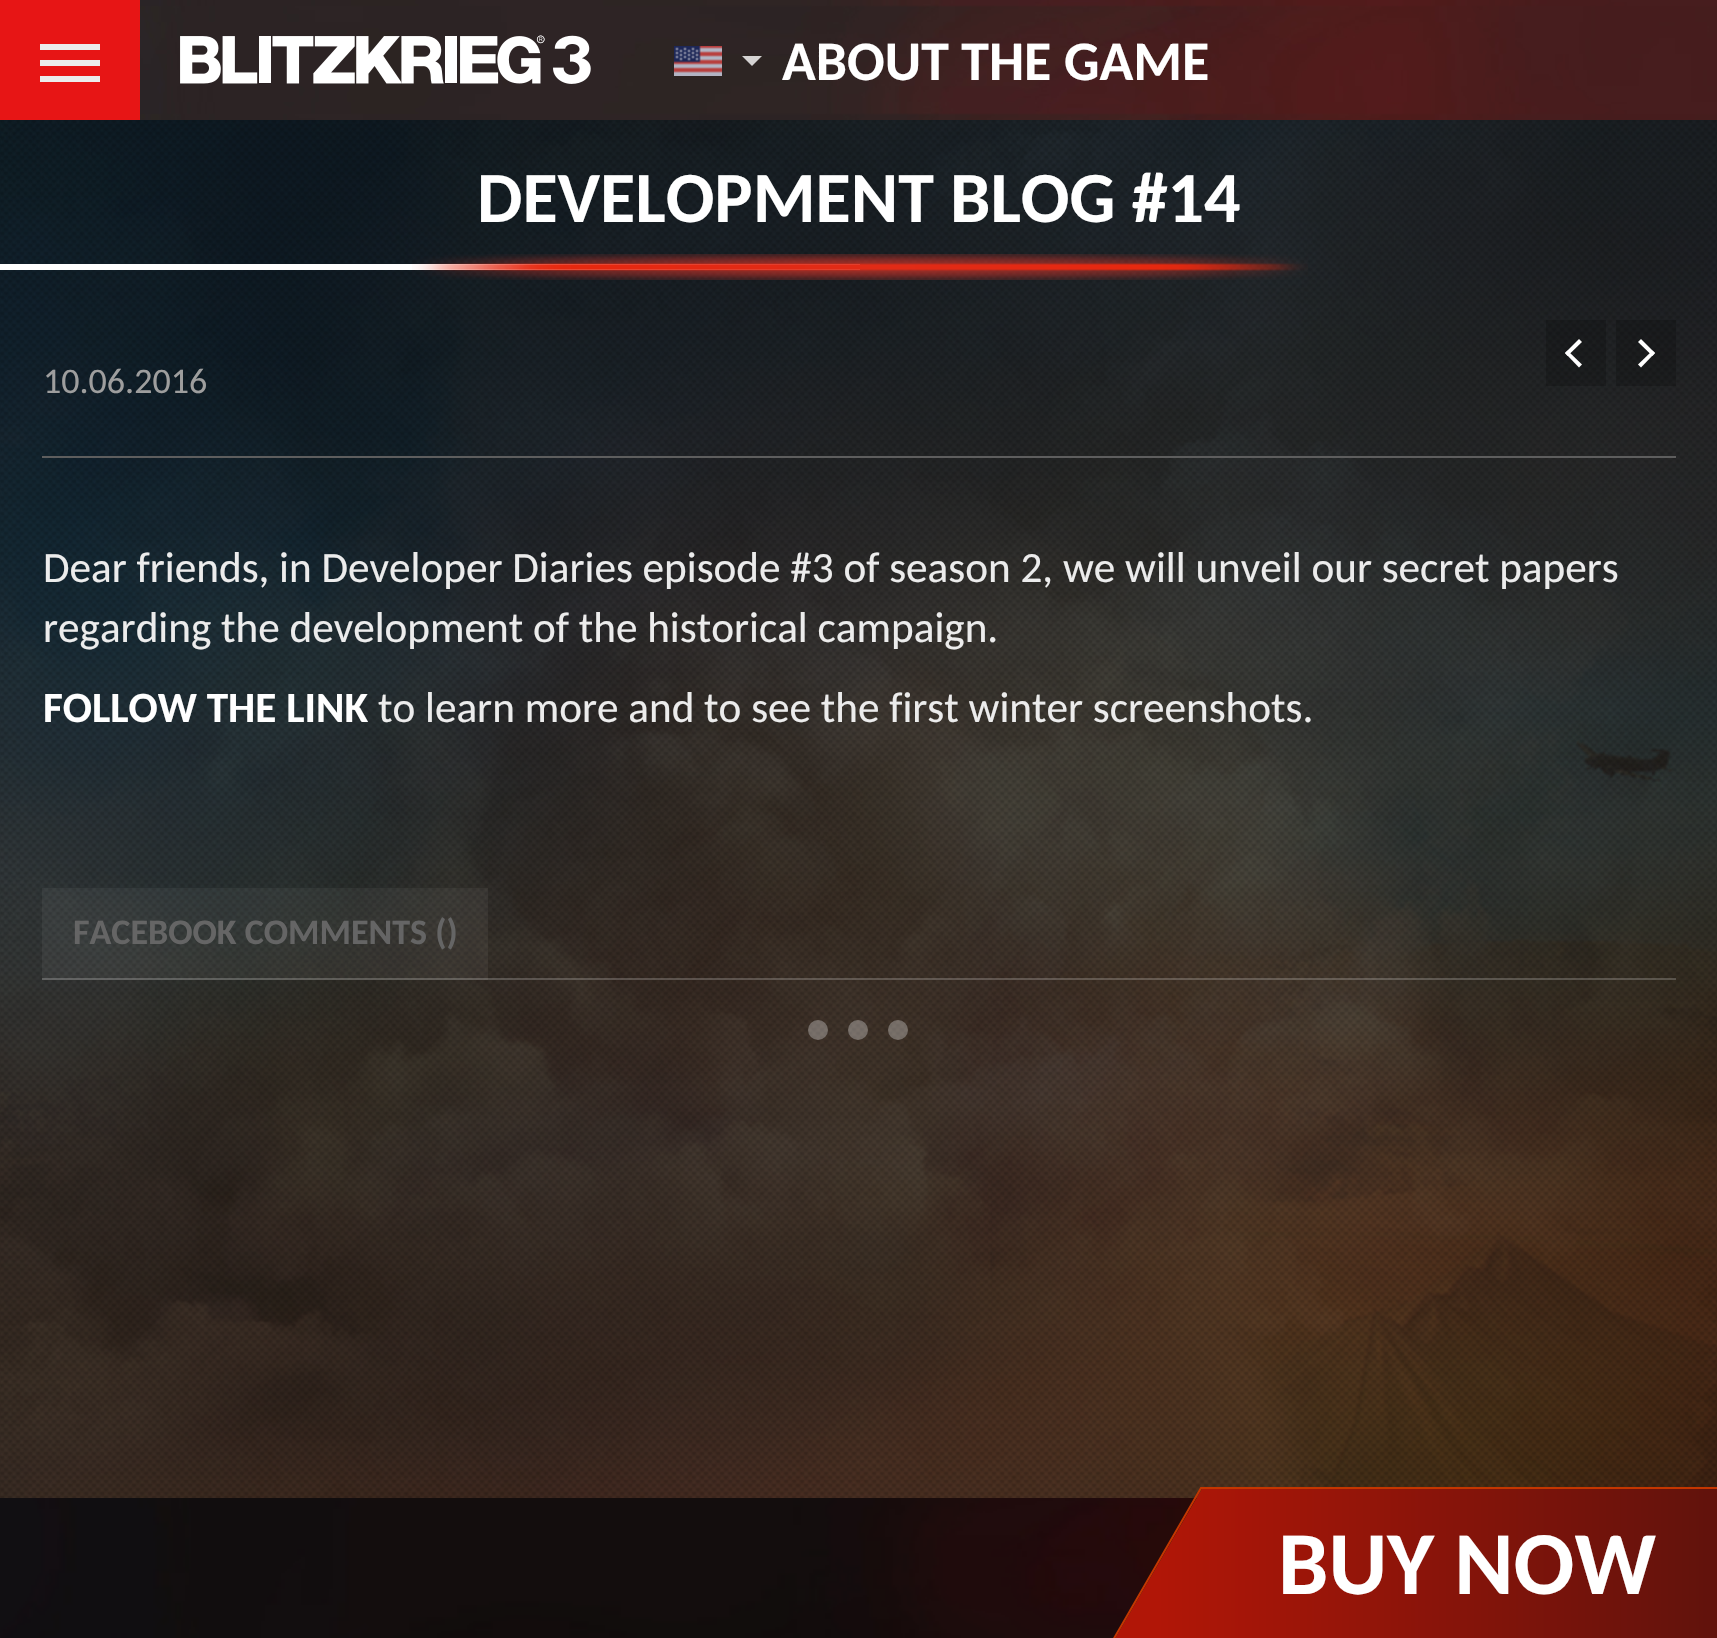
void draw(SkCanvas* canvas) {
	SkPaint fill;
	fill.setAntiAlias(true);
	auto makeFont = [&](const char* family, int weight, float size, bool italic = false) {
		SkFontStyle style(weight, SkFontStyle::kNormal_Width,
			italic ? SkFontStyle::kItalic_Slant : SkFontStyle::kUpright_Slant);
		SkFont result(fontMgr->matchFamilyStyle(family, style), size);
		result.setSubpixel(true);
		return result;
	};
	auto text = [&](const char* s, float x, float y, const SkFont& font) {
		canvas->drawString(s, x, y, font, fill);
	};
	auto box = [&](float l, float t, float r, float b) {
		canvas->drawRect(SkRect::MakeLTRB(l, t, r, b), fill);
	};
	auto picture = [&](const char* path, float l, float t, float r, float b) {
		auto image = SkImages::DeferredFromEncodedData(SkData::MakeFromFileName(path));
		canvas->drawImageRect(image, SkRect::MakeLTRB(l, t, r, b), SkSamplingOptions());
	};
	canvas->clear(0xFFFFFFFF);
	picture("image0.png", 140, 0, 1717, 120);
	fill.setColor(0xFFE71515);
	box(0, 0, 140, 120);
	fill.setColor(0xFFECECEC);
	box(40, 60, 100, 66);
	box(40, 44, 100, 50);
	box(40, 76, 100, 82);
	picture("image1.png", 180, 35, 591, 84);
	picture("image2.png", 674, 46, 722, 76);
	fill.setColor(0xFFD5D3D3);
	canvas->drawPath(SkPathBuilder().moveTo(742, 56).lineTo(762, 56).lineTo(752, 66).close().detach(), fill);
	picture("image3.png", 0, 120, 1717, 1498);
	picture("image4.png", 0, 120, 1717, 1498);
	fill.setColor(0xFFFFFFFF);
	box(0, 264, 860, 270);
	picture("image5.png", 412, 254, 1308, 280);
	fill.setColor(0x33000000);
	box(1546, 320, 1606, 386);
	fill.setColor(0xFFFFFFFF);
	canvas->drawPath(SkPathBuilder().moveTo(1567.5f, 350.5f).lineTo(1582, 364.5f).lineTo(1579, 367.5f).lineTo(1565, 353).close().detach(), fill);
	canvas->drawPath(SkPathBuilder().moveTo(1579, 339).lineTo(1582, 342).lineTo(1567.5f, 356).lineTo(1565, 353).close().detach(), fill);
	fill.setColor(0x33000000);
	box(1616, 320, 1676, 386);
	fill.setColor(0xFFFFFFFF);
	canvas->drawPath(SkPathBuilder().moveTo(1641, 339).lineTo(1655, 353).lineTo(1652.5f, 356).lineTo(1638, 342).close().detach(), fill);
	canvas->drawPath(SkPathBuilder().moveTo(1652.5f, 350.5f).lineTo(1655, 353).lineTo(1641, 367.5f).lineTo(1638, 364.5f).close().detach(), fill);
	fill.setColor(0xFF5E5E5E);
	box(42, 456, 1676, 458);
	fill.setColor(0x33FFFFFF);
	box(42, 978, 1676, 980);
	fill.setColor(0x0DFFFFFF);
	box(42, 888, 488, 980);
	fill.setColor(0x4DFFFFFF);
	canvas->drawCircle(858, 1030, 10, fill);
	canvas->drawCircle(818, 1030, 10, fill);
	canvas->drawCircle(898, 1030, 10, fill);
	picture("image6.png", 0, 1498, 1197, 1638);
	{
		const SkColor colors[] = {0xFFB11607, 0xFF58120D};
		const float stops[] = {0, 1};
		const SkPoint ends[] = {{1158, 1565}, {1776, 1565}};
		fill.setShader(SkGradientShader::MakeLinear(ends, colors, stops, 2, SkTileMode::kClamp));
		fill.setAlpha(255);
	}
	canvas->drawPath(SkPathBuilder().moveTo(1203, 1487).lineTo(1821, 1487).lineTo(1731, 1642).lineTo(1113, 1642).close().detach(), fill);
	fill.setStyle(SkPaint::kStroke_Style);
	fill.setStrokeWidth(2);
	fill.setShader(nullptr);
	fill.setColor(0xFFC43600);
	canvas->drawPath(SkPathBuilder().moveTo(1201, 1488).lineTo(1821.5f, 1488).lineTo(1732.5f, 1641).lineTo(1112.5f, 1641).close().detach(), fill);
	auto font1 = makeFont("Carlito", 700, 55.75f);
	fill.setStyle(SkPaint::kFill_Style);
	fill.setColor(0xFFFFFFFF);
	text("ABOUT THE GAME", 782, 80, font1);
	auto font2 = makeFont("Carlito", 700, 72);
	text("DEVELOPMENT BLOG #14", 477, 222, font2);
	auto font3 = makeFont("Carlito", 400, 36);
	fill.setColor(0xFF9E9E9E);
	text("10.06.2016", 43, 393, font3);
	auto font4 = makeFont("Carlito", 400, 43.2f);
	fill.setColor(0xFFECECEC);
	text("Dear friends, in Developer Diaries episode #3 of season 2, we will unveil our secret papers", 43, 582, font4);
	text("regarding the development of the historical campaign.", 43, 642, font4);
	auto font5 = makeFont("Carlito", 700, 43.2f);
	fill.setColor(0xFFFFFFFF);
	text("FOLLOW THE LINK", 43, 722, font5);
	fill.setColor(0xFFECECEC);
	text("to learn more and to see the first winter screenshots.", 378, 722, font4);
	auto font6 = makeFont("Carlito", 700, 36);
	fill.setColor(0xFF656565);
	text("FACEBOOK COMMENTS ()", 73, 944, font6);
	auto font7 = makeFont("Carlito", 700, 90);
	fill.setColor(0xFFFFFFFF);
	text("BUY NOW", 1278, 1594, font7);
}
